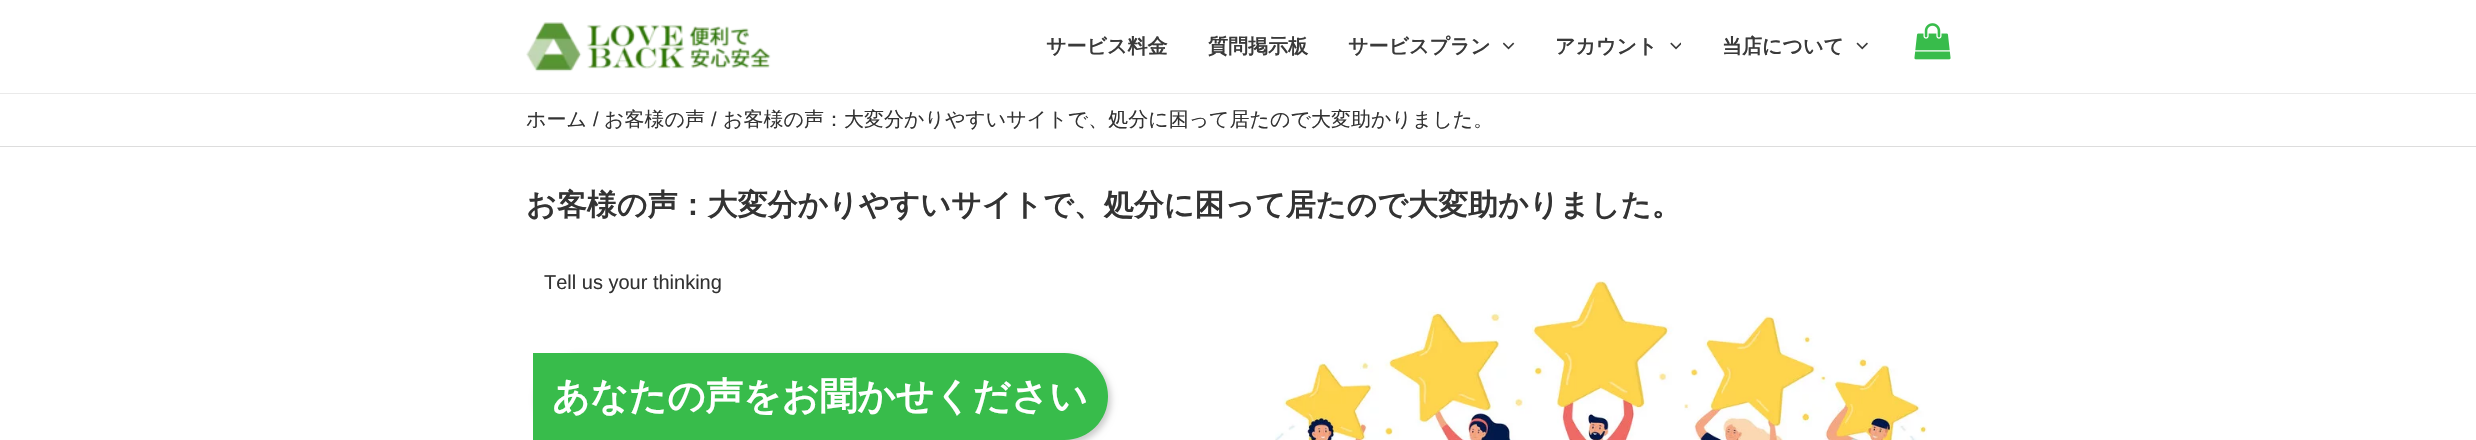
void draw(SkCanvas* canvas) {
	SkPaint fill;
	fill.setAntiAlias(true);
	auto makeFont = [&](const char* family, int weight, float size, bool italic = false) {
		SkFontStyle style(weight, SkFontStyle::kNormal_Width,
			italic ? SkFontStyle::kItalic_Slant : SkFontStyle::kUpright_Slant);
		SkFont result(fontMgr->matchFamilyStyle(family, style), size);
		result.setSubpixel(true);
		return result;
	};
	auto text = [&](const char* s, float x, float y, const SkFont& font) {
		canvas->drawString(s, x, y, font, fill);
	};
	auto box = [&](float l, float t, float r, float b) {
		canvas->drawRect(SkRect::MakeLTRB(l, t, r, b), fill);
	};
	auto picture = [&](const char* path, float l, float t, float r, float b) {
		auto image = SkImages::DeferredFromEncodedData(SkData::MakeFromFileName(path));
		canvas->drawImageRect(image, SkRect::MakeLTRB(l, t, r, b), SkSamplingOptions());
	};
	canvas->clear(0xFFFFFFFF);
	fill.setColor(0xFFEAEAEA);
	box(0, 93, 2476, 94);
	picture("image0.png", 526, 22, 771, 72);
	picture("image1.png", 1503, 42, 1515, 50);
	picture("image2.png", 1670, 42, 1681, 50);
	picture("image3.png", 1856, 42, 1868, 50);
	picture("image4.png", 1914, 23, 1951, 60);
	fill.setColor(0xFFDDDDDD);
	box(0, 146, 2476, 147);
	picture("image5.png", 1275, 280, 1927, 440);
	fill.setColor(0x33000000);
	fill.setMaskFilter(SkMaskFilter::MakeBlur(kNormal_SkBlurStyle, 3));
	canvas->drawRoundRect(SkRect::MakeLTRB(536, 356, 1111, 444), 44, 44, fill);
	fill.setMaskFilter(nullptr);
	fill.setColor(0xFF38BC4B);
	canvas->drawPath(SkPathBuilder().moveTo(533, 353).lineTo(1064.5f, 353).cubicTo(1088.5f, 353, 1108, 372.5f, 1108, 396.5f).cubicTo(1108, 420.5f, 1088.5f, 440, 1064.5f, 440).lineTo(533, 440).close().detach(), fill);
	auto font1 = makeFont("WenQuanYi Zen Hei", 700, 20);
	fill.setColor(0xFF3A3A3A);
	text("サービス料金", 1046, 53, font1);
	text("質問掲示板", 1208, 53, font1);
	text("サービスプラン", 1348, 53, font1);
	text("アカウント", 1555, 53, font1);
	text("当店について", 1722, 53, font1);
	auto font2 = makeFont("WenQuanYi Zen Hei", 500, 20);
	fill.setColor(0xFF333333);
	text("ホーム", 526, 126, font2);
	auto font3 = makeFont("Liberation Sans", 400, 20);
	text("/", 593, 126, font3);
	text("お客様の声", 604, 126, font2);
	text("/", 711, 126, font3);
	text("お客様の声：大変分かりやすいサイトで、処分に困って居たので大変助かりました。", 723, 126, font2);
	auto font4 = makeFont("WenQuanYi Zen Hei", 700, 30);
	text("お客様の声：大変分かりやすいサイトで、処分に困って居たので大変助かりました。", 526, 215, font4);
	text("Tell us your thinking", 544, 289, font3);
	auto font5 = makeFont("WenQuanYi Zen Hei", 700, 37.5f);
	fill.setColor(0xFFFFFFFF);
	text("あなたの声をお聞かせください", 552, 409, font5);
}
